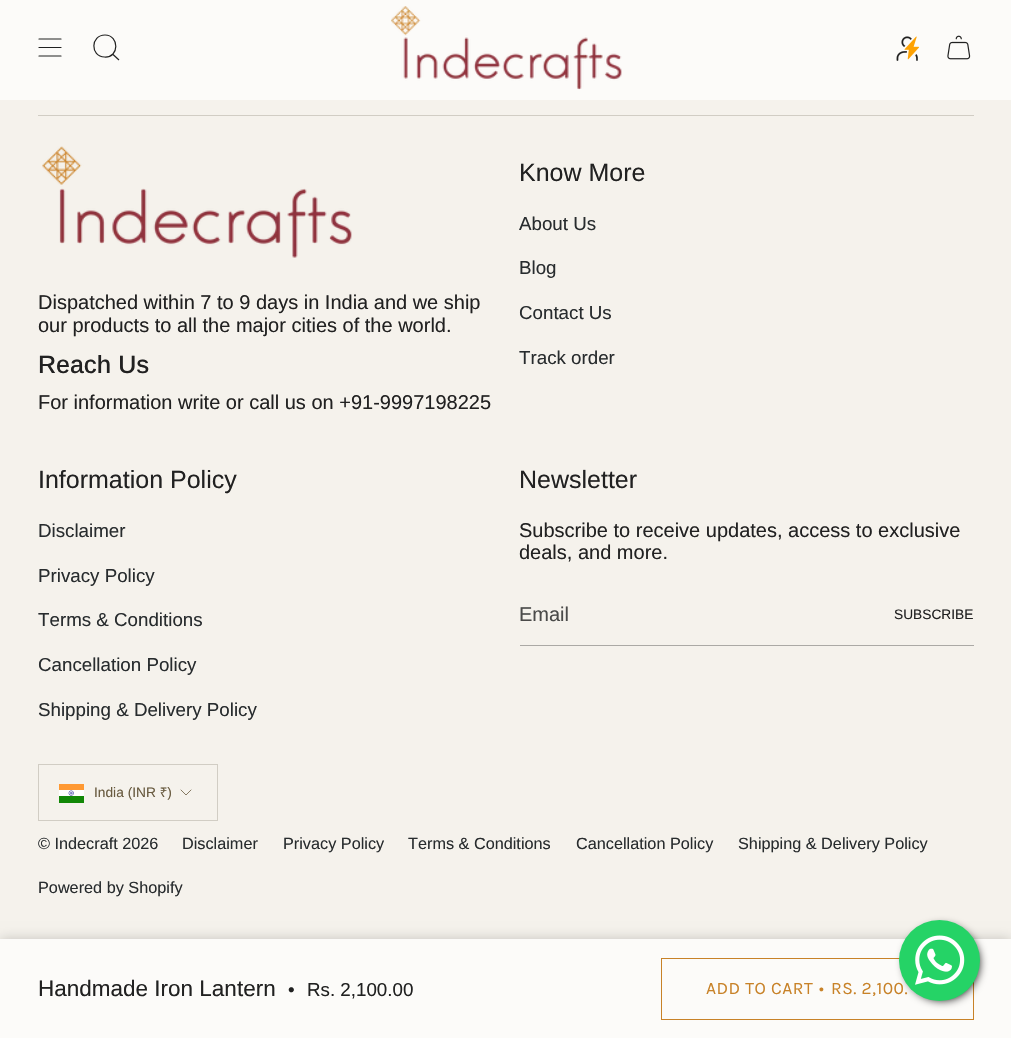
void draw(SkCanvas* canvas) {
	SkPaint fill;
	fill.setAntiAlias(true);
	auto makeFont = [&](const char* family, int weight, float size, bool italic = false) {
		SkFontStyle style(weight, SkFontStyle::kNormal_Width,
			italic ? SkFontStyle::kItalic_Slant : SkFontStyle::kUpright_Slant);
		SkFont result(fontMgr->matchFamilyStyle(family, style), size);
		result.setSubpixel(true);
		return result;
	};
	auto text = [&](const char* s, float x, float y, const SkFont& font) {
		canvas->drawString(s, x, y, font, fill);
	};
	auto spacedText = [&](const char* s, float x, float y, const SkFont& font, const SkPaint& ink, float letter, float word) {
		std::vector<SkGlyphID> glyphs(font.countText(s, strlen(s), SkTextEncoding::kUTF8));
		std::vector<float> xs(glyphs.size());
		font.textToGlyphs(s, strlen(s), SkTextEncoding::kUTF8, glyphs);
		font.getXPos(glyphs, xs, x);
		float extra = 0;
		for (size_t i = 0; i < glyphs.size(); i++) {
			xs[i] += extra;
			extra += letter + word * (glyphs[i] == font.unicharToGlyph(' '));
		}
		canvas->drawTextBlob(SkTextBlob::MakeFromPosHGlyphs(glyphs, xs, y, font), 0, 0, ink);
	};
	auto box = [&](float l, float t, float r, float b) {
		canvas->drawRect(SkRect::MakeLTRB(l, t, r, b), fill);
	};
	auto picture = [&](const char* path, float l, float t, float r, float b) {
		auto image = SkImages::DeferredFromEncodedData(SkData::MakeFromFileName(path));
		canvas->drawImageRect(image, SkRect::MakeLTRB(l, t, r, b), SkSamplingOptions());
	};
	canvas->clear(0xFFF5F2EC);
	fill.setColor(0xFFD1CDC4);
	box(38, 115, 974, 116);
	picture("image0.png", 42, 146, 352, 258);
	fill.setColor(0xFFABA9A5);
	box(520, 645, 974, 646);
	fill.setStyle(SkPaint::kStroke_Style);
	fill.setStrokeWidth(1);
	fill.setColor(0xFFD1CDC4);
	canvas->drawRect(SkRect::MakeLTRB(38.5f, 764.5f, 217.5f, 820.5f), fill);
	picture("image1.png", 59, 784, 84, 803);
	fill.setStrokeWidth(0.8f);
	fill.setStrokeCap(SkPaint::kRound_Cap);
	fill.setStrokeJoin(SkPaint::kRound_Join);
	fill.setColor(0xFF685A3F);
	canvas->drawPath(SkPathBuilder().moveTo(181, 790).lineTo(186, 795).lineTo(191, 790).detach(), fill);
	fill.setStyle(SkPaint::kFill_Style);
	fill.setColor(0xFFFCFBF9);
	box(0, 0, 1011, 100);
	fill.setStyle(SkPaint::kStroke_Style);
	fill.setStrokeWidth(1.2f);
	fill.setColor(0xFF212121);
	canvas->drawPath(SkPathBuilder().moveTo(39, 39).lineTo(61, 39).moveTo(39, 47.5f).lineTo(61, 47.5f).moveTo(39, 56).lineTo(61, 56).detach(), fill);
	fill.setStrokeCap(SkPaint::kButt_Cap);
	fill.setStrokeJoin(SkPaint::kMiter_Join);
	canvas->drawPath(SkPathBuilder().moveTo(105, 35).cubicTo(119.5f, 35, 119.5f, 58, 104.5f, 57).cubicTo(90, 56.5f, 90.5f, 35, 105, 35).close().moveTo(112.5f, 54).lineTo(119, 60).detach(), fill);
	picture("image2.png", 391, 6, 622, 90);
	picture("image3.png", 896, 36, 920, 61);
	picture("image4.png", 947, 35, 971, 60);
	fill.setStyle(SkPaint::kFill_Style);
	fill.setColor(0x33000000);
	fill.setMaskFilter(SkMaskFilter::MakeBlur(kNormal_SkBlurStyle, 6));
	canvas->drawRect(SkRect::MakeLTRB(0, 939, 1011, 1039), fill);
	fill.setMaskFilter(nullptr);
	fill.setColor(0xFFFCFBF9);
	box(0, 939, 1011, 1038);
	fill.setStyle(SkPaint::kStroke_Style);
	fill.setStrokeWidth(1);
	fill.setColor(0xFFC88228);
	canvas->drawRect(SkRect::MakeLTRB(661.5f, 958.5f, 973.5f, 1019.5f), fill);
	fill.setStyle(SkPaint::kFill_Style);
	fill.setColor(0xFF000000);
	fill.setMaskFilter(SkMaskFilter::MakeBlur(kNormal_SkBlurStyle, 5));
	canvas->drawRoundRect(SkRect::MakeLTRB(905, 926, 979, 1000), 37, 37, fill);
	fill.setMaskFilter(nullptr);
	auto font1 = makeFont("Arimo", 400, 20);
	fill.setColor(0xFF212121);
	text("Dispatched within 7 to 9 days in India and we ship", 38, 309, font1);
	text("our products to all the major cities of the world.", 38, 332, font1);
	auto font2 = makeFont("Arimo", 500, 25);
	text("Reach Us", 38, 373, font2);
	text("For information write or call us on +91-9997198225", 38, 409, font1);
	auto font3 = makeFont("Arimo", 400, 25);
	text("Know More", 519, 181, font3);
	auto font4 = makeFont("Arimo", 400, 18.75f);
	fill.setColor(0xFF282C2E);
	text("About Us", 519, 230, font4);
	text("Blog", 519, 274, font4);
	text("Contact Us", 519, 319, font4);
	text("Track order", 519, 364, font4);
	fill.setColor(0xFF212121);
	text("Information Policy", 38, 488, font3);
	fill.setColor(0xFF282C2E);
	text("Disclaimer", 38, 537, font4);
	text("Privacy Policy", 38, 582, font4);
	text("Terms & Conditions", 38, 626, font4);
	text("Cancellation Policy", 38, 671, font4);
	text("Shipping & Delivery Policy", 38, 716, font4);
	fill.setColor(0xFF212121);
	text("Newsletter", 519, 488, font3);
	text("Subscribe to receive updates, access to exclusive", 519, 537, font1);
	text("deals, and more.", 519, 559, font1);
	fill.setColor(0xFF4B4B4A);
	text("Email", 519, 621, font1);
	auto font5 = makeFont("Arimo", 400, 13.75f);
	fill.setColor(0xFF212121);
	text("SUBSCRIBE", 894, 619, font5);
	fill.setColor(0xFF685A3F);
	text("India (INR ₹)", 94, 797, font5);
	auto font6 = makeFont("Arimo", 400, 16.25f);
	fill.setColor(0xFF282C2E);
	text("© Indecraft 2026", 38, 849, font6);
	text("Disclaimer", 182, 849, font6);
	text("Privacy Policy", 283, 849, font6);
	text("Terms & Conditions", 408, 849, font6);
	text("Cancellation Policy", 576, 849, font6);
	text("Shipping & Delivery Policy", 738, 849, font6);
	text("Powered by Shopify", 38, 893, font6);
	auto font7 = makeFont("Arimo", 400, 22.5f);
	fill.setColor(0xFF212121);
	text("Handmade Iron Lantern", 38, 996, font7);
	text("•", 288, 996, font4);
	text("Rs. 2,100.00", 307, 996, font4);
	auto font8 = makeFont("Karla", 400, 17.5f);
	fill.setColor(0xFFC88228);
	spacedText("ADD TO CART", 706, 994, font8, fill, 0.5f, 0);
	spacedText("•", 819, 994, font8, fill, 0.5f, 0);
	spacedText("RS. 2,100.", 831, 994, font8, fill, 0.5f, 0);
	fill.setColor(0xFF25D366);
	canvas->drawCircle(939.5f, 960.5f, 40.5f, fill);
	picture("image5.png", 915, 935, 965, 985);
}
